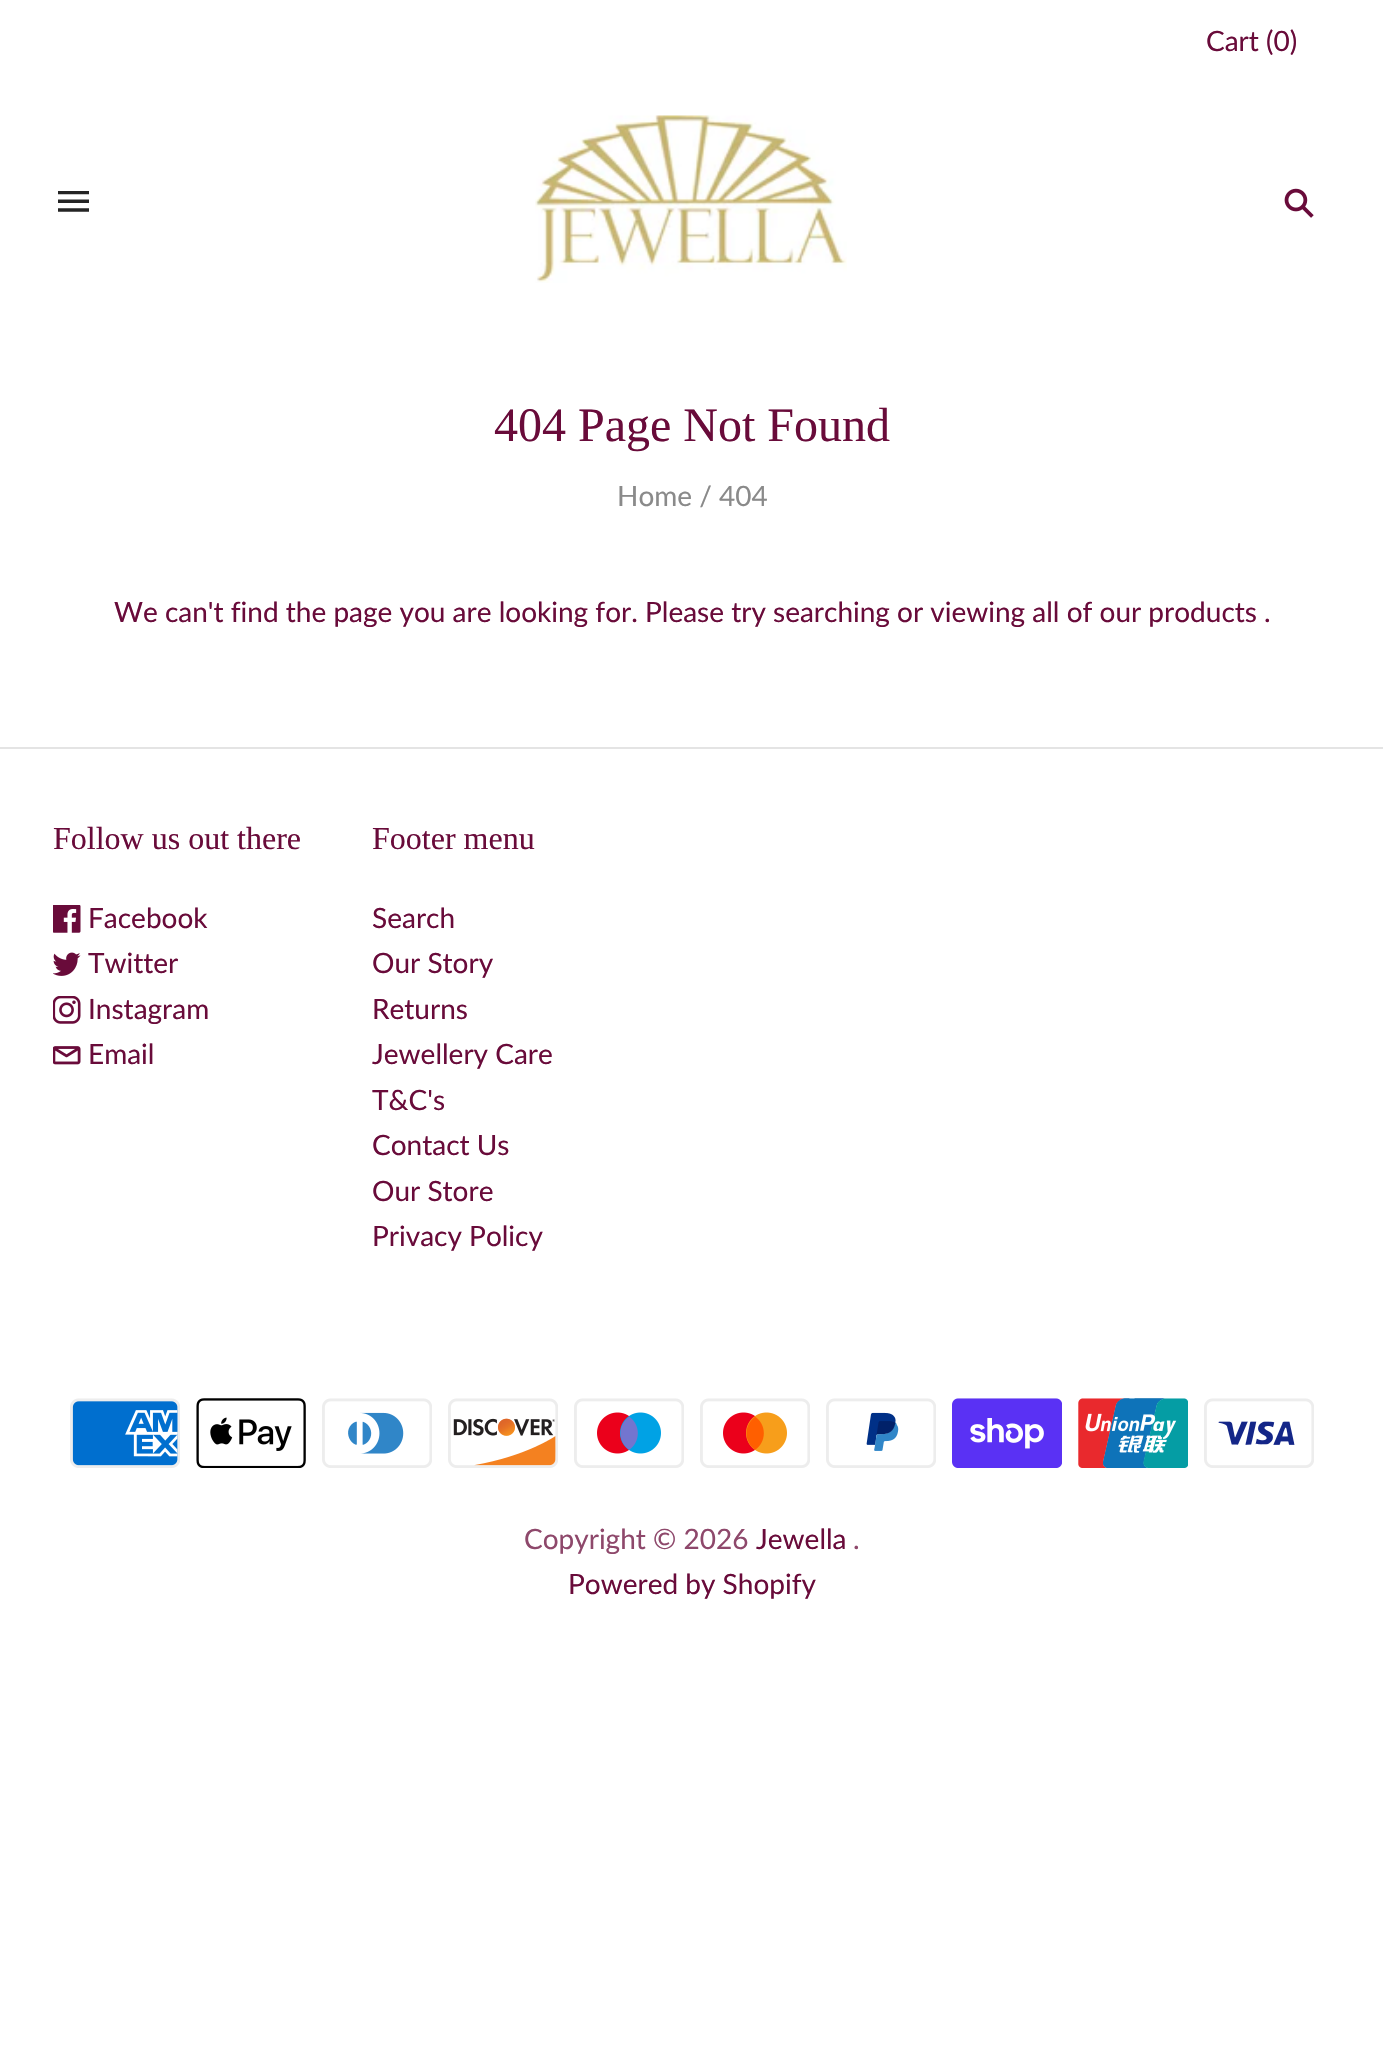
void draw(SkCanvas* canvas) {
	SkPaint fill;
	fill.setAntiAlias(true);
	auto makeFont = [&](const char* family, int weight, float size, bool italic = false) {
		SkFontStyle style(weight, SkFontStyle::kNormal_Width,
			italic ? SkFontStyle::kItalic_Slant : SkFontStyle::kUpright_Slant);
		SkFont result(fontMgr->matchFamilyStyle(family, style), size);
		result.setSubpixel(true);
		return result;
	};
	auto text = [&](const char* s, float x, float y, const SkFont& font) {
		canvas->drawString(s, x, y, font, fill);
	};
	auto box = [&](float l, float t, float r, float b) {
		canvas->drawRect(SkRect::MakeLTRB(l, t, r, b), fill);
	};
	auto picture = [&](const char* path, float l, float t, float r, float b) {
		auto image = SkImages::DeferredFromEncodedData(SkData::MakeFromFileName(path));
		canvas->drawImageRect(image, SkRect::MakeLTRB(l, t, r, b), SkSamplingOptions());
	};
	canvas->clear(0xFFFFFFFF);
	picture("image0.png", 58, 191, 89, 212);
	picture("image1.png", 535, 115, 847, 283);
	picture("image2.png", 1284, 188, 1314, 218);
	fill.setColor(0xFFE4E4E4);
	box(0, 747, 1383, 749);
	picture("image3.png", 53, 905, 81, 933);
	picture("image4.png", 53, 952, 81, 976);
	picture("image5.png", 53, 996, 81, 1024);
	picture("image6.png", 53, 1046, 81, 1065);
	picture("image7.png", 70, 1398, 180, 1468);
	picture("image8.png", 196, 1398, 306, 1468);
	picture("image9.png", 322, 1398, 432, 1468);
	picture("image10.png", 448, 1398, 558, 1468);
	picture("image11.png", 574, 1398, 684, 1468);
	picture("image12.png", 700, 1398, 810, 1468);
	picture("image13.png", 826, 1398, 936, 1468);
	picture("image14.png", 952, 1398, 1062, 1468);
	picture("image15.png", 1078, 1398, 1188, 1468);
	picture("image16.png", 1204, 1398, 1314, 1468);
	auto font1 = makeFont("Lato", 400, 28);
	fill.setColor(0xFF690B3A);
	text("Cart (0)", 1206, 51, font1);
	auto font2 = makeFont("Liberation Serif", 400, 48);
	text("404 Page Not Found", 494, 441, font2);
	fill.setColor(0xFF8A8A8A);
	text("Home / 404", 617, 506, font1);
	fill.setColor(0xFF690B3A);
	text("We can't find the page you are looking for. Please try searching or viewing all of our products .", 114, 622, font1);
	auto font3 = makeFont("Liberation Serif", 400, 32);
	text("Follow us out there", 53, 849, font3);
	text("Facebook", 88, 928, font1);
	text("Twitter", 88, 973, font1);
	text("Instagram", 88, 1019, font1);
	text("Email", 88, 1064, font1);
	text("Footer menu", 372, 849, font3);
	text("Search", 372, 928, font1);
	text("Our Story", 372, 973, font1);
	text("Returns", 372, 1019, font1);
	text("Jewellery Care", 372, 1064, font1);
	text("T&C's", 372, 1110, font1);
	text("Contact Us", 372, 1155, font1);
	text("Our Store", 372, 1201, font1);
	text("Privacy Policy", 372, 1246, font1);
	fill.setColor(0xFF8E486B);
	text("Copyright © 2026", 524, 1549, font1);
	fill.setColor(0xFF690B3A);
	text("Jewella", 756, 1549, font1);
	fill.setColor(0xFF8E486B);
	text(".", 853, 1549, font1);
	fill.setColor(0xFF690B3A);
	text("Powered by Shopify", 568, 1594, font1);
}
